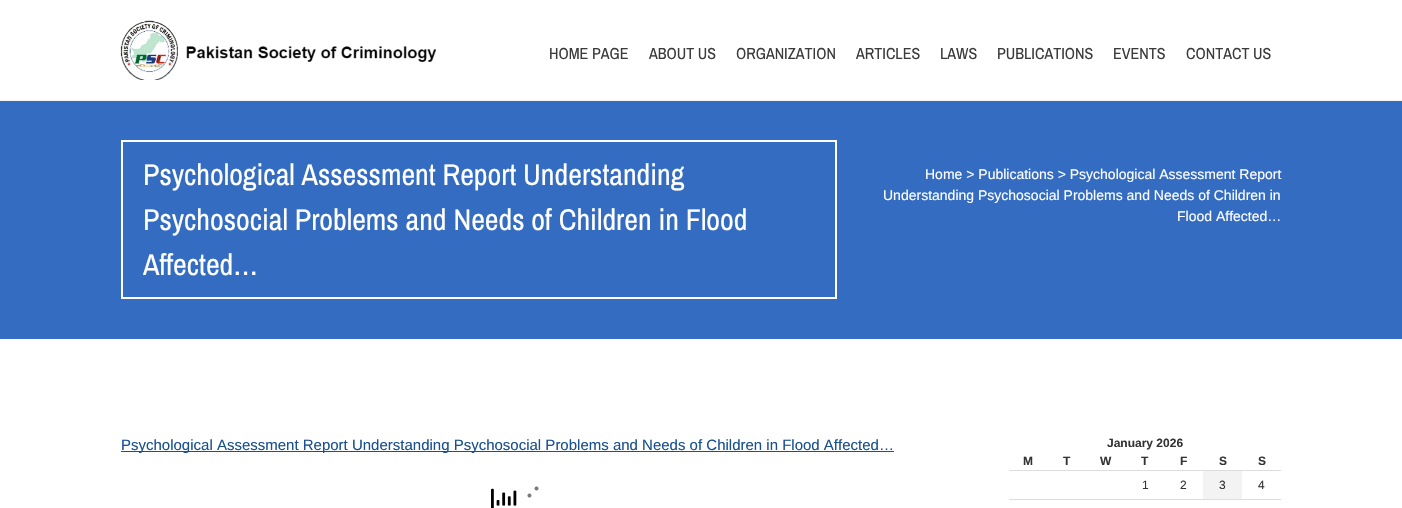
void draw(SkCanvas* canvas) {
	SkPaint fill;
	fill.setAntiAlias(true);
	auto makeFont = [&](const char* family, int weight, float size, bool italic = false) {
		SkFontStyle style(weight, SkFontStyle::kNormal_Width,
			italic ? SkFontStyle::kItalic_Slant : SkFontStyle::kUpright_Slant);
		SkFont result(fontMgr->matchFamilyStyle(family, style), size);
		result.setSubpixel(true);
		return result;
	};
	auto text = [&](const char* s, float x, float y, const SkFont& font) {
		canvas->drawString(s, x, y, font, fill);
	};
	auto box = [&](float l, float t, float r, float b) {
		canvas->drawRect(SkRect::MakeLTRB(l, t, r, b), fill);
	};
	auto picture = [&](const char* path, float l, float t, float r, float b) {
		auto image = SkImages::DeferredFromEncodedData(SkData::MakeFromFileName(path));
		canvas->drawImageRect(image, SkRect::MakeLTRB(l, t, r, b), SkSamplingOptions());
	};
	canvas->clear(0xFFFFFFFF);
	fill.setColor(0xFFF3F3F3);
	box(0, 100, 1402, 101);
	picture("image0.png", 120, 20, 436, 80);
	fill.setColor(0xFF346CC1);
	box(0, 101, 1402, 339);
	fill.setStyle(SkPaint::kStroke_Style);
	fill.setStrokeWidth(2);
	fill.setColor(0xFFFFFFFF);
	canvas->drawRect(SkRect::MakeLTRB(122, 141, 836, 298), fill);
	fill.setStyle(SkPaint::kFill_Style);
	fill.setColor(0xFF195090);
	box(121, 451, 894, 452);
	picture("image1.png", 491, 488, 517, 508);
	picture("image2.png", 527, 486, 539, 498);
	fill.setColor(0xFFDDDDDD);
	box(1009, 470, 1281, 471);
	fill.setColor(0xFFF3F3F3);
	box(1203, 471, 1242, 499);
	fill.setColor(0xFFDDDDDD);
	box(1009, 499, 1281, 500);
	auto font1 = makeFont("Archivo Narrow", 400, 16);
	fill.setColor(0xFF3B3B3D);
	text("HOME PAGE", 549, 59, font1);
	text("ABOUT US", 649, 59, font1);
	text("ORGANIZATION", 736, 59, font1);
	text("ARTICLES", 856, 59, font1);
	text("LAWS", 940, 59, font1);
	text("PUBLICATIONS", 997, 59, font1);
	text("EVENTS", 1113, 59, font1);
	text("CONTACT US", 1186, 59, font1);
	auto font2 = makeFont("Archivo Narrow", 400, 30);
	fill.setColor(0xFFFFFFFF);
	text("Psychological Assessment Report Understanding", 143, 185, font2);
	text("Psychosocial Problems and Needs of Children in Flood", 143, 230, font2);
	text("Affected…", 143, 275, font2);
	auto font3 = makeFont("Arimo", 400, 14);
	text("Home > Publications > Psychological Assessment Report", 925, 179, font3);
	text("Understanding Psychosocial Problems and Needs of Children in", 883, 200, font3);
	text("Flood Affected…", 1177, 221, font3);
	auto font4 = makeFont("Arimo", 400, 15);
	fill.setColor(0xFF195090);
	text("Psychological Assessment Report Understanding Psychosocial Problems and Needs of Children in Flood Affected…", 121, 450, font4);
	auto font5 = makeFont("Arimo", 700, 12);
	fill.setColor(0xFF343434);
	text("January 2026", 1107, 447, font5);
	text("M", 1023, 465, font5);
	text("T", 1063, 465, font5);
	text("W", 1100, 465, font5);
	text("T", 1141, 465, font5);
	text("F", 1180, 465, font5);
	text("S", 1219, 465, font5);
	text("S", 1258, 465, font5);
	auto font6 = makeFont("Arimo", 400, 12);
	text("1", 1142, 489, font6);
	text("2", 1180, 489, font6);
	text("3", 1219, 489, font6);
	text("4", 1258, 489, font6);
}
